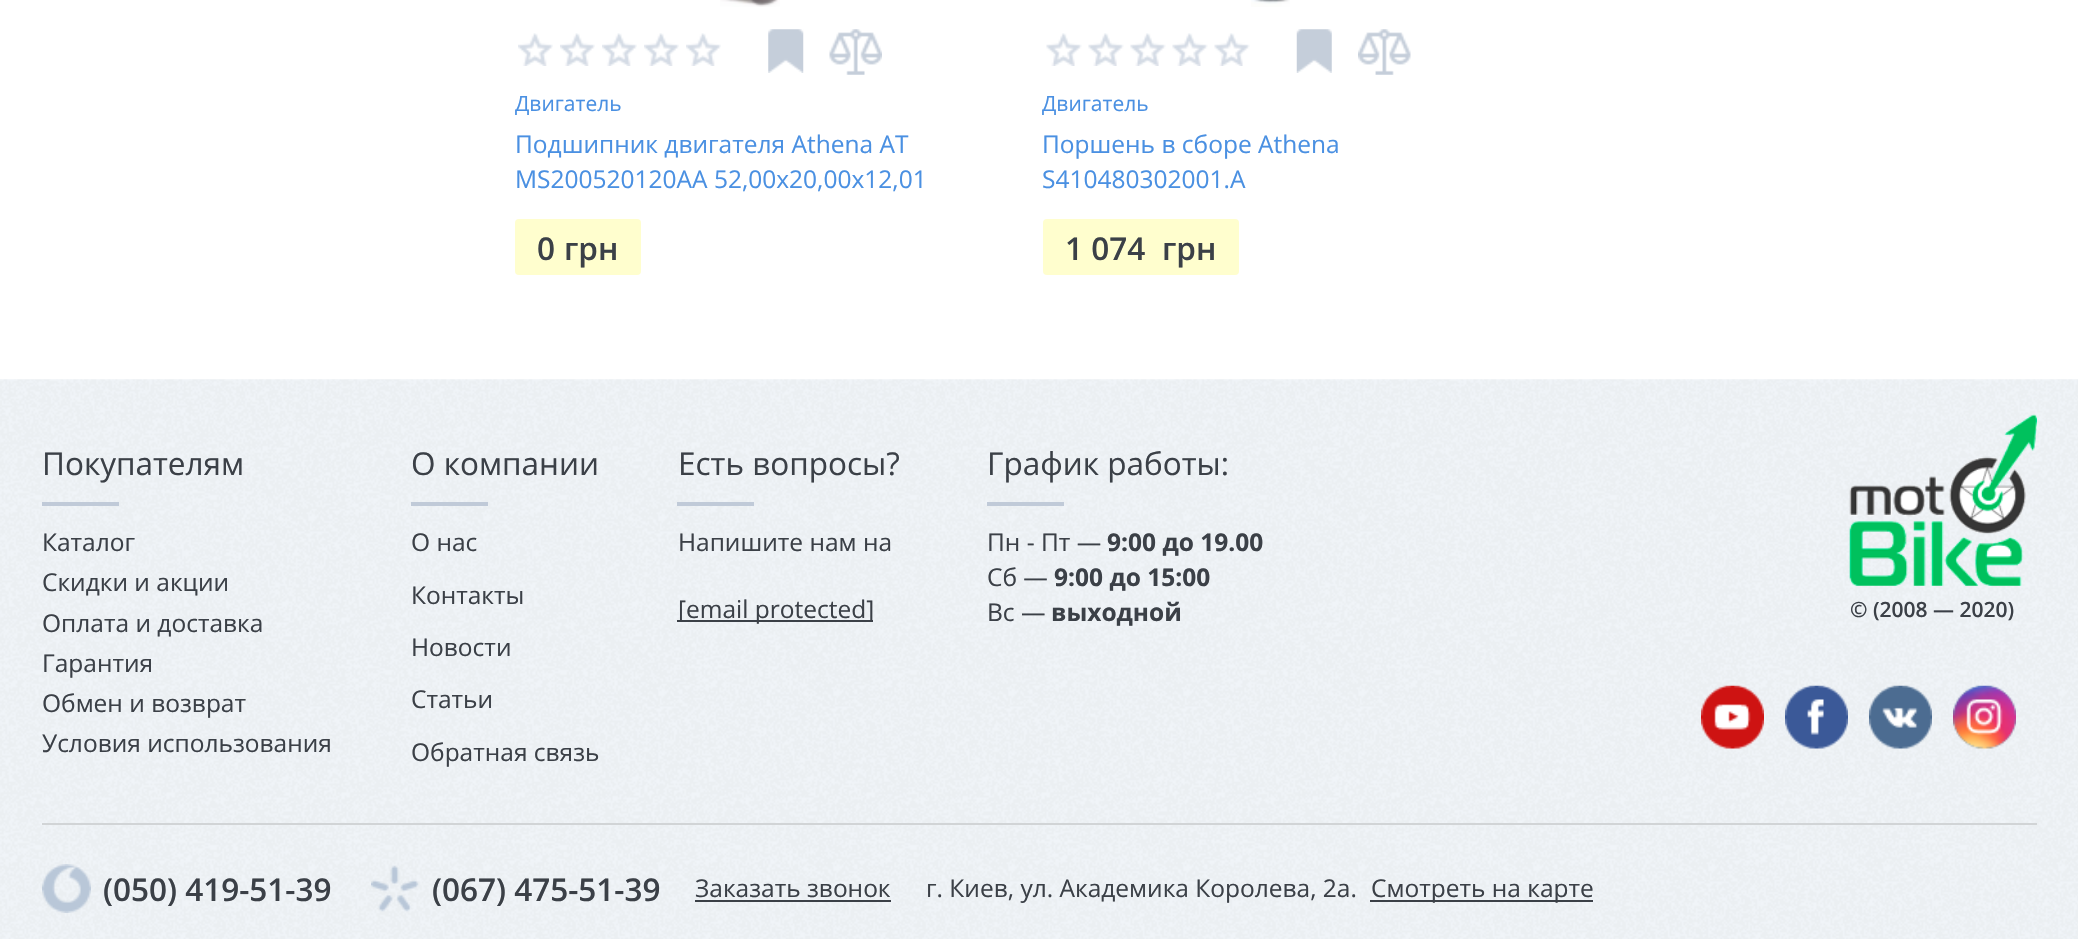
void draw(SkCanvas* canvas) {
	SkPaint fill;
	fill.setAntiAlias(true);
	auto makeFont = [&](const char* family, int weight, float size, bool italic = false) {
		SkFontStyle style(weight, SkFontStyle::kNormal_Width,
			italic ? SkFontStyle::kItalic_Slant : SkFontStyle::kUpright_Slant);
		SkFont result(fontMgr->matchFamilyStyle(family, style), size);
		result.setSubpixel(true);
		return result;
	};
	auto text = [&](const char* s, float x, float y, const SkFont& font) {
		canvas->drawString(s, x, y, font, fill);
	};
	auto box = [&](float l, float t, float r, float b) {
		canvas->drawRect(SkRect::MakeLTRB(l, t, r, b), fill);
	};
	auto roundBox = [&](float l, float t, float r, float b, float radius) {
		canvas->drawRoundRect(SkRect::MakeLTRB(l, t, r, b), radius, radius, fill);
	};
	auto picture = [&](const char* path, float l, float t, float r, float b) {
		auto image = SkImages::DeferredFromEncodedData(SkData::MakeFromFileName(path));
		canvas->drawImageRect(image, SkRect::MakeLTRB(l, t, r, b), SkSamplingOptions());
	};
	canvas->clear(0xFFFFFFFF);
	picture("image0.png", 720, 0, 780, 7);
	picture("image1.png", 518, 33, 553, 66);
	picture("image1.png", 560, 33, 595, 66);
	picture("image1.png", 602, 33, 637, 66);
	picture("image2.png", 644, 33, 679, 66);
	picture("image1.png", 686, 33, 721, 66);
	picture("image3.png", 768, 29, 804, 73);
	picture("image4.png", 829, 29, 882, 75);
	fill.setColor(0xFFFFFECE);
	roundBox(515, 219, 641, 275, 4);
	picture("image5.png", 1251, 0, 1290, 7);
	picture("image6.png", 1046, 33, 1082, 66);
	picture("image7.png", 1088, 33, 1124, 66);
	picture("image7.png", 1130, 33, 1166, 66);
	picture("image8.png", 1172, 33, 1208, 66);
	picture("image8.png", 1214, 33, 1250, 66);
	picture("image9.png", 1296, 29, 1332, 73);
	picture("image10.png", 1358, 29, 1411, 75);
	roundBox(1043, 219, 1239, 275, 4);
	picture("image11.png", 0, 379, 2078, 939);
	fill.setColor(0xFFD1D4D6);
	box(42, 823, 2037, 825);
	fill.setColor(0xFFC0CAD8);
	box(42, 502, 119, 506);
	box(411, 502, 488, 506);
	box(677, 502, 754, 506);
	fill.setColor(0xFF3B4047);
	box(677, 620, 873, 622);
	fill.setColor(0xFFC0CAD8);
	box(987, 502, 1064, 506);
	picture("image12.png", 1849, 414, 2037, 586);
	picture("image13.png", 1701, 685, 1764, 749);
	picture("image14.png", 1785, 685, 1848, 749);
	picture("image15.png", 1869, 685, 1932, 749);
	picture("image16.png", 1953, 685, 2016, 749);
	picture("image17.png", 42, 864, 91, 913);
	picture("image18.png", 371, 865, 419, 912);
	fill.setColor(0xFF3B4047);
	box(695, 900, 891, 902);
	box(1370, 900, 1593, 902);
	auto font1 = makeFont("Open Sans", 400, 21);
	fill.setColor(0xFF4A90E2);
	text("Двигатель", 515, 111, font1);
	auto font2 = makeFont("Open Sans", 400, 24.5f);
	text("Подшипник двигателя Athena AT", 515, 153, font2);
	text("MS200520120AA 52,00x20,00x12,01", 515, 188, font2);
	auto font3 = makeFont("Open Sans", 600, 31.5f);
	fill.setColor(0xFF3B4047);
	text("0", 537, 260, font3);
	text("грн", 564, 260, font3);
	fill.setColor(0xFF4A90E2);
	text("Двигатель", 1042, 111, font1);
	text("Поршень в сборе Athena", 1042, 153, font2);
	text("S410480302001.A", 1042, 188, font2);
	fill.setColor(0xFF3B4047);
	text("1 074", 1065, 260, font3);
	text("грн", 1162, 260, font3);
	auto font4 = makeFont("Open Sans", 400, 31.5f);
	text("Покупателям", 42, 475, font4);
	text("Каталог", 42, 551, font2);
	text("Скидки и акции", 42, 591, font2);
	text("Оплата и доставка", 42, 632, font2);
	text("Гарантия", 42, 672, font2);
	text("Обмен и возврат", 42, 712, font2);
	text("Условия использования", 42, 752, font2);
	text("О компании", 411, 475, font4);
	text("О нас", 411, 551, font2);
	text("Контакты", 411, 604, font2);
	text("Новости", 411, 656, font2);
	text("Статьи", 411, 708, font2);
	text("Обратная связь", 411, 761, font2);
	text("Есть вопросы?", 678, 475, font4);
	text("Напишите нам на", 678, 551, font2);
	text("[email protected]", 678, 618, font2);
	text("График работы:", 987, 475, font4);
	text("Пн - Пт —", 987, 551, font2);
	auto font5 = makeFont("Open Sans", 700, 24.5f);
	text("9:00 до 19.00", 1107, 551, font5);
	text("Сб —", 987, 586, font2);
	text("9:00 до 15:00", 1054, 586, font5);
	text("Вс —", 987, 621, font2);
	text("выходной", 1051, 621, font5);
	auto font6 = makeFont("Open Sans", 600, 21);
	text("© (2008 — 2020)", 1850, 617, font6);
	text("(050) 419-51-39", 103, 901, font3);
	text("(067) 475-51-39", 432, 901, font3);
	text("Заказать звонок", 695, 897, font2);
	text("г. Киев, ул. Академика Королева, 2а.", 926, 897, font2);
	text("Смотреть на карте", 1371, 897, font2);
}
